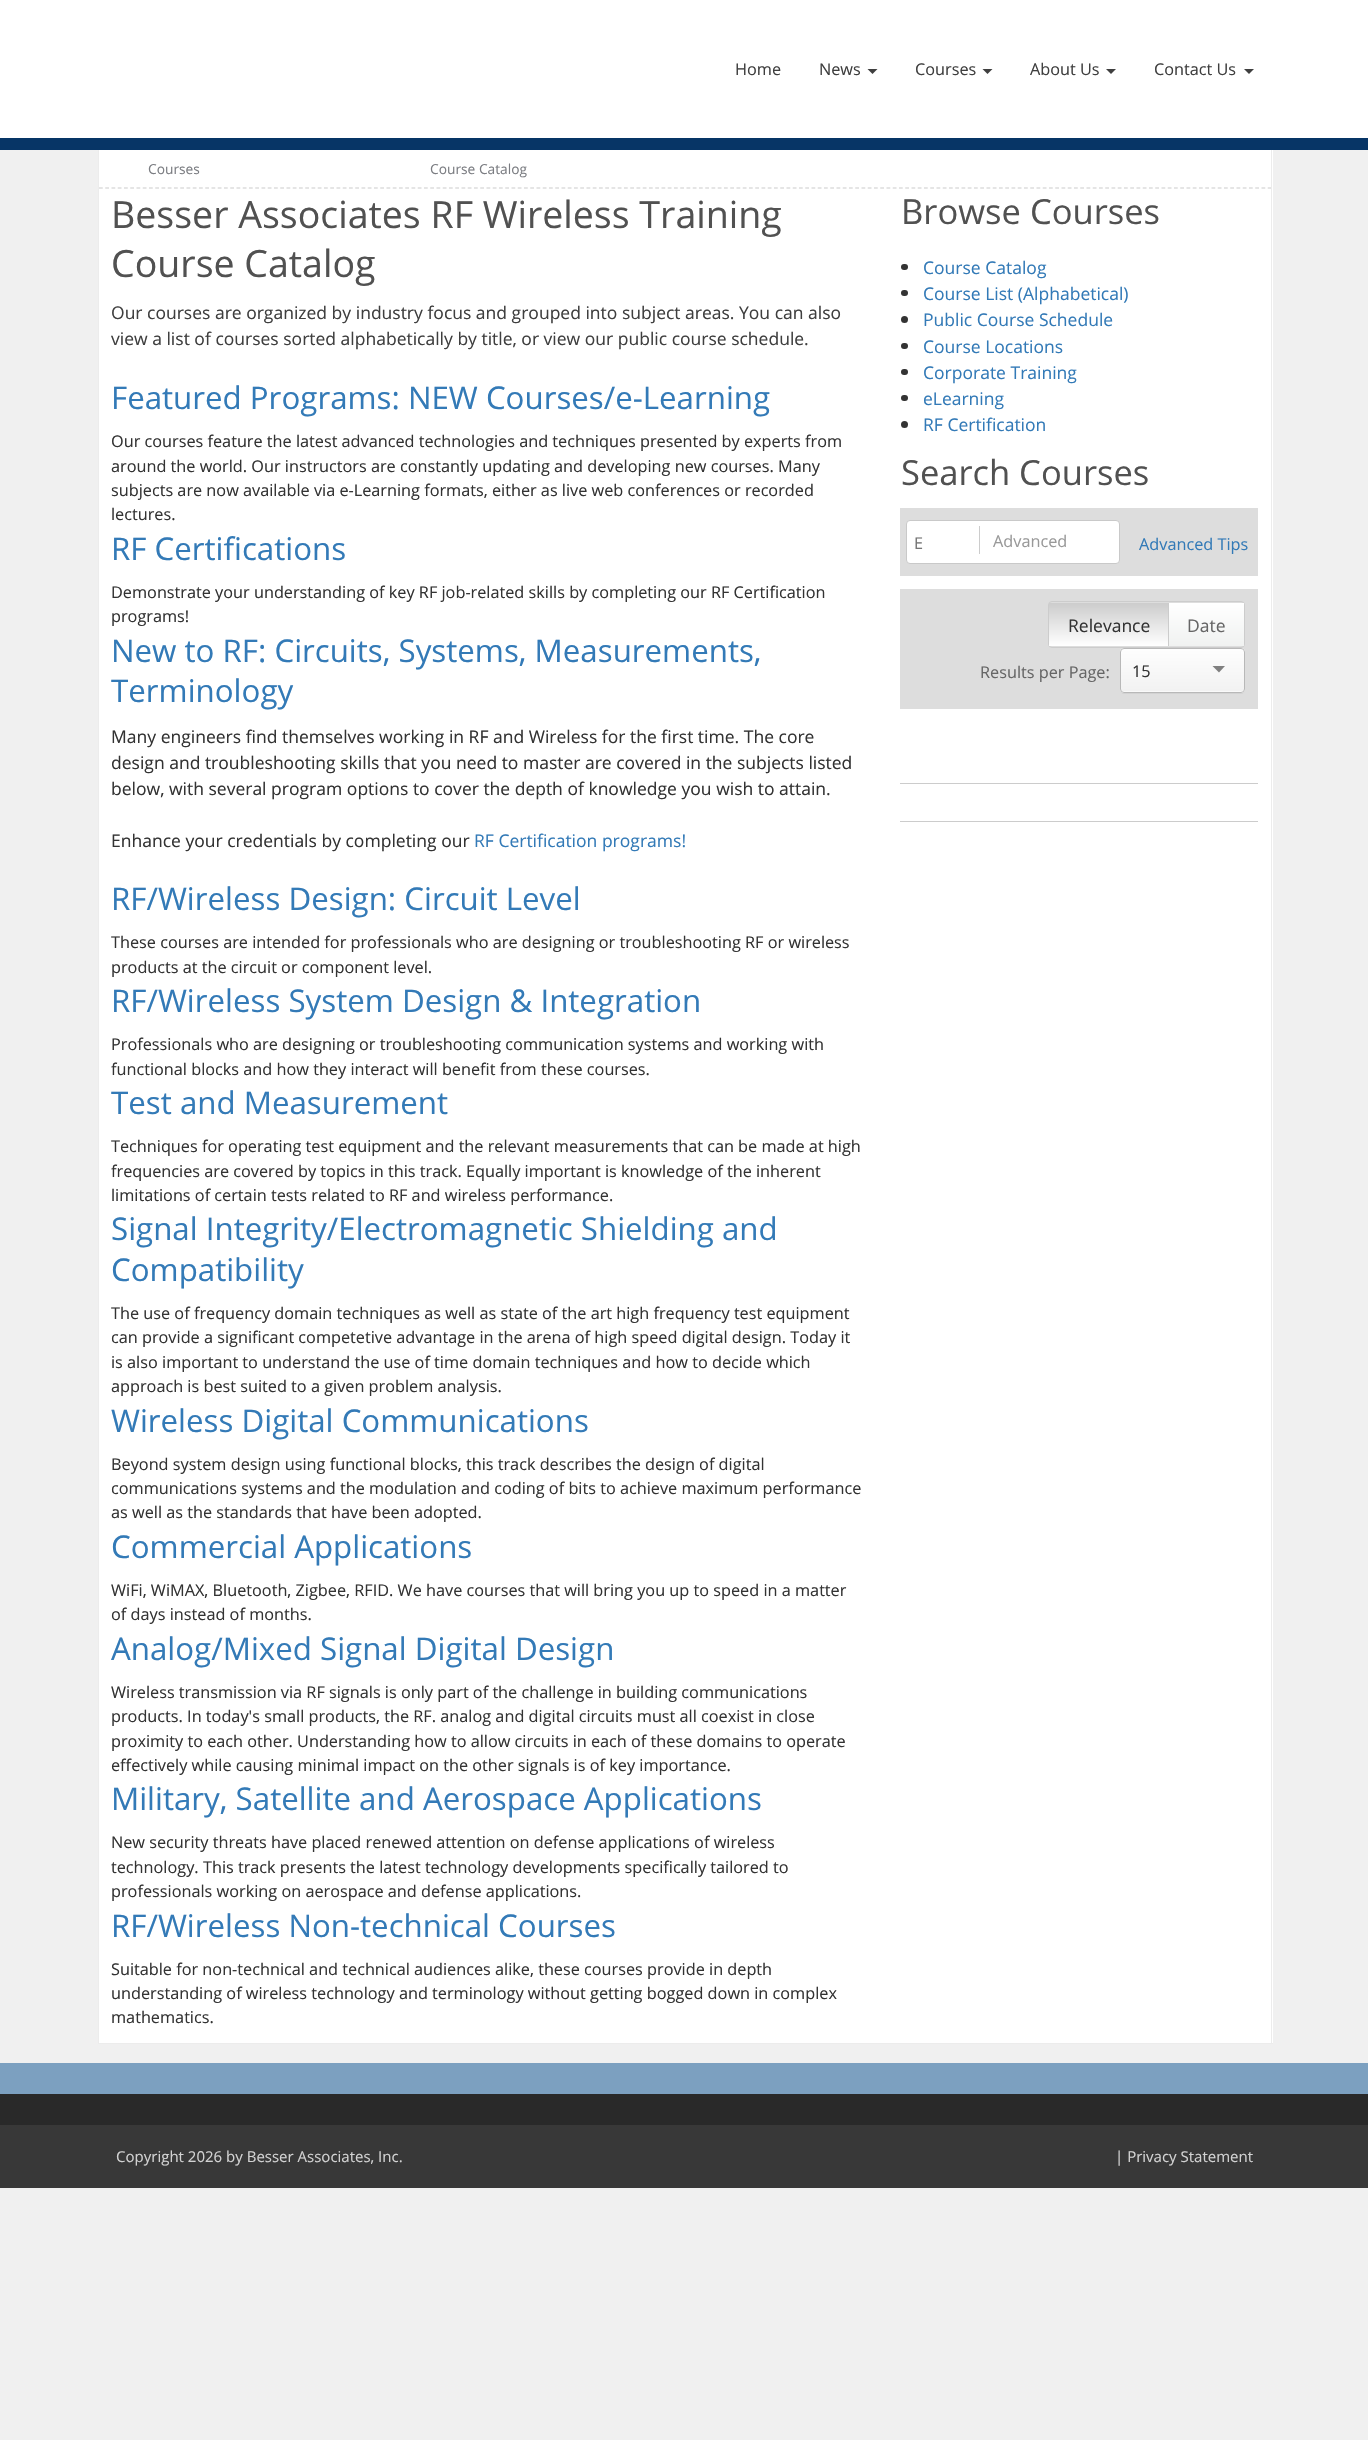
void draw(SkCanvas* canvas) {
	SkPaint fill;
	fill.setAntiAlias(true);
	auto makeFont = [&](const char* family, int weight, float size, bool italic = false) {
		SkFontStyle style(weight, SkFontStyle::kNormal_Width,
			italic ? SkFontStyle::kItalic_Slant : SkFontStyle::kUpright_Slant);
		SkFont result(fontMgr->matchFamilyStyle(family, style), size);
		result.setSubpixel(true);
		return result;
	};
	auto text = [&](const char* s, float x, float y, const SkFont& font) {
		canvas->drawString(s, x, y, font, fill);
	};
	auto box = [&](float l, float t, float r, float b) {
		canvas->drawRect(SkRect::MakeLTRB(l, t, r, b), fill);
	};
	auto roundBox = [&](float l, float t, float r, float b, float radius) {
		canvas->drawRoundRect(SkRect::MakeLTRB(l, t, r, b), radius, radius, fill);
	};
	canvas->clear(0xFFF0F0F0);
	fill.setColor(0xFFFFFFFF);
	box(0, 0, 1368, 138);
	fill.setColor(0xFF073566);
	box(0, 138, 1368, 150);
	fill.setColor(0xFF3F3F3F);
	canvas->drawPath(SkPathBuilder().moveTo(867.5f, 69).lineTo(877.5f, 69).lineTo(872.5f, 74).close().detach(), fill);
	canvas->drawPath(SkPathBuilder().moveTo(982.5f, 69).lineTo(992.5f, 69).lineTo(987.5f, 74).close().detach(), fill);
	canvas->drawPath(SkPathBuilder().moveTo(1106, 69).lineTo(1116, 69).lineTo(1111, 74).close().detach(), fill);
	canvas->drawPath(SkPathBuilder().moveTo(1244, 69).lineTo(1254, 69).lineTo(1249, 74).close().detach(), fill);
	fill.setColor(0xFFFFFFFF);
	box(99, 150, 1273, 2043);
	fill.setColor(0xFFECECEC);
	box(1271, 150, 1272, 2044);
	box(98, 2043, 1273, 2044);
	box(98, 150, 99, 2044);
	fill.setStyle(SkPaint::kStroke_Style);
	fill.setStrokeWidth(1.2f);
	fill.setColor(0xFFCCCCCC);
	fill.setPathEffect(SkDashPathEffect::Make({{3.75f, 2.5f}}, 0));
	canvas->drawPath(SkPathBuilder().moveTo(99, 188).lineTo(1271, 188).detach(), fill);
	fill.setPathEffect(nullptr);
	fill.setStyle(SkPaint::kFill_Style);
	fill.setColor(0xFF333333);
	roundBox(901, 264, 908, 270, 3);
	roundBox(901, 290, 908, 296, 3);
	canvas->drawCircle(904.5f, 319.5f, 3.5f, fill);
	roundBox(901, 343, 908, 349, 3);
	roundBox(901, 369, 908, 375, 3);
	roundBox(901, 395, 908, 401, 3);
	canvas->drawCircle(904.5f, 424.5f, 3.5f, fill);
	fill.setColor(0xFFDDDDDD);
	box(900, 508, 1258, 576);
	fill.setColor(0xFFFFFFFF);
	canvas->drawRoundRect(SkRect::MakeLTRB(906.5f, 520.5f, 1119.5f, 563.5f), 3.5f, 3.5f, fill);
	fill.setStyle(SkPaint::kStroke_Style);
	fill.setStrokeWidth(1);
	fill.setColor(0xFFC9C9C9);
	canvas->drawRoundRect(SkRect::MakeLTRB(906.5f, 520.5f, 1119.5f, 563.5f), 3.5f, 3.5f, fill);
	fill.setStyle(SkPaint::kFill_Style);
	fill.setColor(0xFFCCCCCC);
	box(979, 526, 980, 554);
	fill.setColor(0xFFDDDDDD);
	box(900, 589, 1258, 709);
	fill.setStyle(SkPaint::kStroke_Style);
	fill.setColor(0xFFCCCCCC);
	canvas->drawRoundRect(SkRect::MakeLTRB(1048.5f, 601.5f, 1244.5f, 647.5f), 3.5f, 3.5f, fill);
	fill.setStyle(SkPaint::kFill_Style);
	{
		const SkColor colors[] = {0xFFCCCCCC, 0xFFFFFFFF};
		const float stops[] = {0, 1};
		const SkPoint ends[] = {{1109, 603}, {1109, 646}};
		fill.setShader(SkGradientShader::MakeLinear(ends, colors, stops, 2, SkTileMode::kClamp));
		fill.setAlpha(255);
	}
	box(1049, 603, 1168, 646);
	fill.setShader(nullptr);
	fill.setColor(0xFFCCCCCC);
	box(1168, 603, 1169, 646);
	{
		const SkColor colors[] = {0xFFFFFFFF, 0xFFF0F2F1};
		const float stops[] = {0, 1};
		const SkPoint ends[] = {{1206, 603}, {1206, 646}};
		fill.setShader(SkGradientShader::MakeLinear(ends, colors, stops, 2, SkTileMode::kClamp));
		fill.setAlpha(255);
	}
	box(1169, 603, 1244, 646);
	fill.setShader(nullptr);
	fill.setColor(0xFFD2D2D2);
	canvas->drawPath(SkPathBuilder().moveTo(1120, 689).lineTo(1120, 690).cubicTo(1120, 692, 1122, 694, 1124, 694).lineTo(1241, 694).cubicTo(1243, 694, 1245, 692, 1245, 690).lineTo(1245, 689).cubicTo(1245, 691, 1243, 692, 1241, 692).lineTo(1124, 692).cubicTo(1122, 692, 1120, 691, 1120, 689).close().detach(), fill);
	fill.setColor(0xFFF9F9F9);
	roundBox(1120, 648, 1245, 693, 4);
	canvas->save();
	canvas->clipPath(SkPathBuilder().moveTo(1124, 648).lineTo(1241, 648).cubicTo(1243, 648, 1245, 650, 1245, 652).lineTo(1245, 689).cubicTo(1245, 691, 1243, 693, 1241, 693).lineTo(1124, 693).cubicTo(1122, 693, 1120, 691, 1120, 689).lineTo(1120, 652).cubicTo(1120, 650, 1122, 648, 1124, 648).close().detach(), true);
	{
		const SkColor colors[] = {0xFFFEFEFE, 0xFFF2F2F2};
		const float stops[] = {0, 1};
		const SkPoint ends[] = {{1183, 649}, {1183, 691}};
		fill.setShader(SkGradientShader::MakeLinear(ends, colors, stops, 2, SkTileMode::kClamp));
		fill.setAlpha(255);
	}
	box(1120, 649, 1245, 691);
	canvas->restore();
	fill.setStyle(SkPaint::kStroke_Style);
	fill.setShader(nullptr);
	fill.setColor(0xFFB8B8B8);
	canvas->drawRoundRect(SkRect::MakeLTRB(1120.5f, 648.5f, 1244.5f, 692.5f), 3.5f, 3.5f, fill);
	fill.setStyle(SkPaint::kFill_Style);
	fill.setColor(0xFF808080);
	canvas->drawPath(SkPathBuilder().moveTo(1212.5f, 666).lineTo(1225, 666).lineTo(1219, 672.5f).close().detach(), fill);
	fill.setColor(0xFFCCCCCC);
	box(900, 783, 1258, 784);
	box(900, 821, 1258, 822);
	fill.setColor(0xFF292929);
	box(0, 2094, 1368, 2125);
	fill.setColor(0xFF7CA0C0);
	box(0, 2063, 1368, 2094);
	fill.setColor(0xFF383838);
	box(0, 2125, 1368, 2188);
	auto font1 = makeFont("Open Sans", 400, 16.25f);
	fill.setColor(0xFF3F3F3F);
	text("Home", 735, 75, font1);
	text("News", 819, 75, font1);
	text("Courses", 915, 75, font1);
	text("About Us", 1030, 75, font1);
	text("Contact Us", 1154, 75, font1);
	auto font2 = makeFont("Open Sans", 400, 13.75f);
	fill.setColor(0xFF7B7D82);
	text("Courses", 148, 174, font2);
	text("Course Catalog", 430, 174, font2);
	auto font3 = makeFont("Open Sans", 400, 37.5f);
	fill.setColor(0xFF515151);
	text("Besser Associates RF Wireless Training", 111, 228, font3);
	text("Course Catalog", 111, 277, font3);
	auto font4 = makeFont("Open Sans", 400, 17.5f);
	fill.setColor(0xFF3F3F3F);
	text("Our courses are organized by industry focus and grouped into subject areas. You can also", 111, 319, font4);
	text("view a list of courses sorted alphabetically by title, or view our public course schedule.", 111, 345, font4);
	auto font5 = makeFont("Open Sans", 400, 31.25f);
	fill.setColor(0xFF337AB7);
	text("Featured Programs: NEW Courses/e-Learning", 111, 409, font5);
	fill.setColor(0xFF333333);
	text("Our courses feature the latest advanced technologies and techniques presented by experts from", 111, 447, font1);
	text("around the world. Our instructors are constantly updating and developing new courses. Many", 111, 472, font1);
	text("subjects are now available via e-Learning formats, either as live web conferences or recorded", 111, 496, font1);
	text("lectures.", 111, 520, font1);
	fill.setColor(0xFF337AB7);
	text("RF Certifications", 111, 560, font5);
	fill.setColor(0xFF333333);
	text("Demonstrate your understanding of key RF job-related skills by completing our RF Certification", 111, 598, font1);
	text("programs!", 111, 622, font1);
	fill.setColor(0xFF337AB7);
	text("New to RF: Circuits, Systems, Measurements,", 111, 662, font5);
	text("Terminology", 111, 702, font5);
	fill.setColor(0xFF333333);
	text("Many engineers find themselves working in RF and Wireless for the first time. The core", 111, 743, font4);
	text("design and troubleshooting skills that you need to master are covered in the subjects listed", 111, 769, font4);
	text("below, with several program options to cover the depth of knowledge you wish to attain.", 111, 795, font4);
	text("Enhance your credentials by completing our", 111, 847, font4);
	fill.setColor(0xFF337AB7);
	text("RF Certification programs!", 474, 847, font4);
	text("RF/Wireless Design: Circuit Level", 111, 910, font5);
	fill.setColor(0xFF333333);
	text("These courses are intended for professionals who are designing or troubleshooting RF or wireless", 111, 948, font1);
	text("products at the circuit or component level.", 111, 973, font1);
	fill.setColor(0xFF337AB7);
	text("RF/Wireless System Design & Integration", 111, 1012, font5);
	fill.setColor(0xFF333333);
	text("Professionals who are designing or troubleshooting communication systems and working with", 111, 1050, font1);
	text("functional blocks and how they interact will benefit from these courses.", 111, 1075, font1);
	fill.setColor(0xFF337AB7);
	text("Test and Measurement", 111, 1114, font5);
	fill.setColor(0xFF333333);
	text("Techniques for operating test equipment and the relevant measurements that can be made at high", 111, 1152, font1);
	text("frequencies are covered by topics in this track. Equally important is knowledge of the inherent", 111, 1177, font1);
	text("limitations of certain tests related to RF and wireless performance.", 111, 1201, font1);
	fill.setColor(0xFF337AB7);
	text("Signal Integrity/Electromagnetic Shielding and", 111, 1240, font5);
	text("Compatibility", 111, 1281, font5);
	fill.setColor(0xFF333333);
	text("The use of frequency domain techniques as well as state of the art high frequency test equipment", 111, 1319, font1);
	text("can provide a significant competetive advantage in the arena of high speed digital design. Today it", 111, 1343, font1);
	text("is also important to understand the use of time domain techniques and how to decide which", 111, 1368, font1);
	text("approach is best suited to a given problem analysis.", 111, 1392, font1);
	fill.setColor(0xFF337AB7);
	text("Wireless Digital Communications", 111, 1432, font5);
	fill.setColor(0xFF333333);
	text("Beyond system design using functional blocks, this track describes the design of digital", 111, 1470, font1);
	text("communications systems and the modulation and coding of bits to achieve maximum performance", 111, 1494, font1);
	text("as well as the standards that have been adopted.", 111, 1518, font1);
	fill.setColor(0xFF337AB7);
	text("Commercial Applications", 111, 1558, font5);
	fill.setColor(0xFF333333);
	text("WiFi, WiMAX, Bluetooth, Zigbee, RFID. We have courses that will bring you up to speed in a matter", 111, 1596, font1);
	text("of days instead of months.", 111, 1620, font1);
	fill.setColor(0xFF337AB7);
	text("Analog/Mixed Signal Digital Design", 111, 1660, font5);
	fill.setColor(0xFF333333);
	text("Wireless transmission via RF signals is only part of the challenge in building communications", 111, 1698, font1);
	text("products. In today's small products, the RF. analog and digital circuits must all coexist in close", 111, 1722, font1);
	text("proximity to each other. Understanding how to allow circuits in each of these domains to operate", 111, 1747, font1);
	text("effectively while causing minimal impact on the other signals is of key importance.", 111, 1771, font1);
	fill.setColor(0xFF337AB7);
	text("Military, Satellite and Aerospace Applications", 111, 1810, font5);
	fill.setColor(0xFF333333);
	text("New security threats have placed renewed attention on defense applications of wireless", 111, 1848, font1);
	text("technology. This track presents the latest technology developments specifically tailored to", 111, 1873, font1);
	text("professionals working on aerospace and defense applications.", 111, 1897, font1);
	fill.setColor(0xFF337AB7);
	text("RF/Wireless Non-technical Courses", 111, 1937, font5);
	fill.setColor(0xFF333333);
	text("Suitable for non-technical and technical audiences alike, these courses provide in depth", 111, 1975, font1);
	text("understanding of wireless technology and terminology without getting bogged down in complex", 111, 1999, font1);
	text("mathematics.", 111, 2023, font1);
	auto font6 = makeFont("Open Sans", 400, 34.5f);
	fill.setColor(0xFF515151);
	text("Browse Courses", 901, 224, font6);
	fill.setColor(0xFF337AB7);
	text("Course Catalog", 923, 274, font4);
	text("Course List (Alphabetical)", 923, 300, font4);
	text("Public Course Schedule", 923, 326, font4);
	text("Course Locations", 923, 353, font4);
	text("Corporate Training", 923, 379, font4);
	text("eLearning", 923, 405, font4);
	text("RF Certification", 923, 431, font4);
	fill.setColor(0xFF515151);
	text("Search Courses", 901, 485, font6);
	fill.setColor(0xFF757575);
	text("E", 914, 549, font1);
	fill.setColor(0xFF999999);
	text("Advanced", 993, 547, font1);
	fill.setColor(0xFF337AB7);
	text("Advanced Tips", 1139, 550, font1);
	fill.setColor(0xFF333333);
	text("Relevance", 1068, 632, font4);
	fill.setColor(0xFF666666);
	text("Date", 1187, 632, font4);
	text("Results per Page:", 980, 678, font1);
	fill.setColor(0xFF333333);
	text("15", 1132, 677, font1);
	auto font7 = makeFont("Open Sans", 400, 15);
	fill.setColor(0xFFD2D2D2);
	text("Copyright 2026 by Besser Associates, Inc.", 116, 2162, font7);
	text("| Privacy Statement", 1115, 2162, font7);
}
